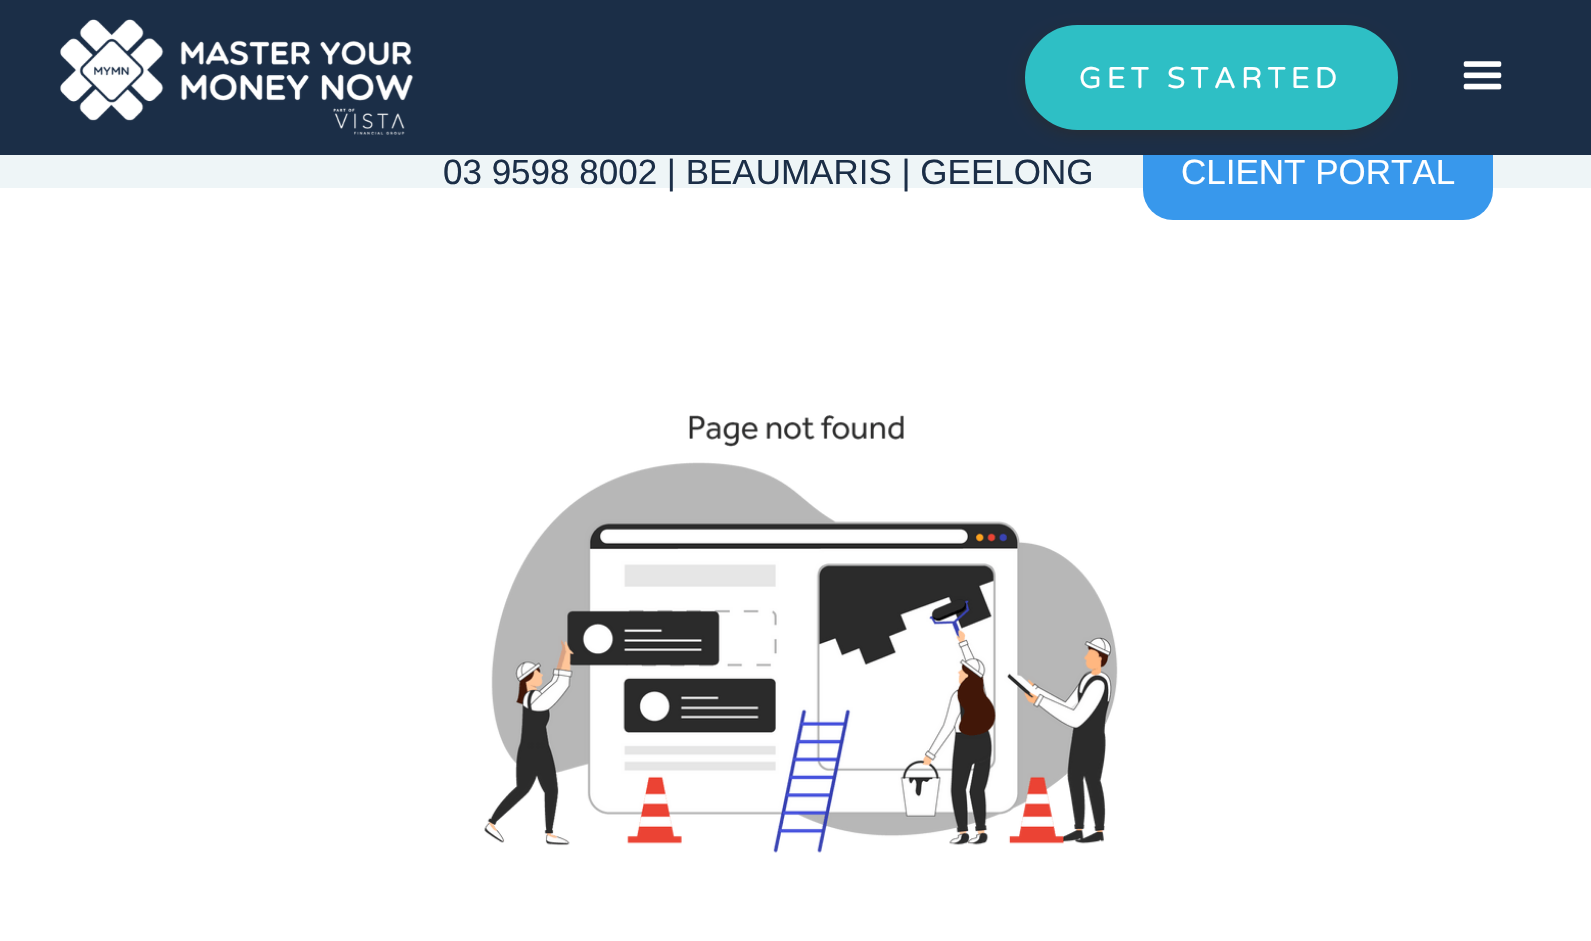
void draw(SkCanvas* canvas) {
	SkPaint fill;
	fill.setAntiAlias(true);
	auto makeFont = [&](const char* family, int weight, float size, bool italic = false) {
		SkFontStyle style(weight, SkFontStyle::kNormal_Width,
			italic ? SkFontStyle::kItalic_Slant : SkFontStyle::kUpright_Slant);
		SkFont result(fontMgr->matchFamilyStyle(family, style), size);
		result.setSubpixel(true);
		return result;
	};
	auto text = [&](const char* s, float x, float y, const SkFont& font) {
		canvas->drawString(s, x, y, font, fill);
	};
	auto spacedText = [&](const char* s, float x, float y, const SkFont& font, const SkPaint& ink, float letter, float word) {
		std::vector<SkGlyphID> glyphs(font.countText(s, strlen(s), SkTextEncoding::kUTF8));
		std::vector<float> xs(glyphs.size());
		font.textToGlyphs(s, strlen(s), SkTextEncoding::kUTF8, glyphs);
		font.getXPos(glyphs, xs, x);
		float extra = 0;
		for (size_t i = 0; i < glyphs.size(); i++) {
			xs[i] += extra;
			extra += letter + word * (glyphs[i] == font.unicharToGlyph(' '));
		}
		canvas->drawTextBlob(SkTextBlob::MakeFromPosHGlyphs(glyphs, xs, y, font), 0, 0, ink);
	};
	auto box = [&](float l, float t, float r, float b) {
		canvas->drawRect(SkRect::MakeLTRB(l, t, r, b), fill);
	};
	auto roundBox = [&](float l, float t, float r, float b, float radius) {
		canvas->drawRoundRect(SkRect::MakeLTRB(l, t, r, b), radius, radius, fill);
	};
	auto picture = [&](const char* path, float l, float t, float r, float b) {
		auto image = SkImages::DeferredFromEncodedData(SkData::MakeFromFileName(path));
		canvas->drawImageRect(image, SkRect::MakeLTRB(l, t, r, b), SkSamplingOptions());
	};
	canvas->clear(0xFFFFFFFF);
	fill.setColor(0xFFEEF5F7);
	box(0, 155, 1591, 188);
	fill.setColor(0xFF3898EC);
	roundBox(1143, 125, 1493, 220, 30);
	fill.setColor(0xFF1B2E47);
	box(0, 0, 1591, 155);
	picture("image0.png", 60, 19, 414, 135);
	fill.setColor(0xFF2B2B2B);
	fill.setMaskFilter(SkMaskFilter::MakeBlur(kNormal_SkBlurStyle, 10));
	canvas->drawRoundRect(SkRect::MakeLTRB(1028, 35, 1390, 130), 47.5f, 47.5f, fill);
	fill.setMaskFilter(nullptr);
	fill.setColor(0xFF2EBFC5);
	canvas->drawRoundRect(SkRect::MakeLTRB(1027.5f, 27.5f, 1395.5f, 127.5f), 50, 50, fill);
	fill.setStyle(SkPaint::kStroke_Style);
	fill.setStrokeWidth(5);
	canvas->drawRoundRect(SkRect::MakeLTRB(1027.5f, 27.5f, 1395.5f, 127.5f), 50, 50, fill);
	picture("image1.png", 1463, 61, 1502, 90);
	picture("image2.png", 484, 415, 1118, 853);
	auto font1 = makeFont("Varela Round", 400, 30);
	fill.setStyle(SkPaint::kFill_Style);
	fill.setColor(0xFFFFFFFF);
	spacedText("GET STARTED", 1079, 88, font1, fill, 5, 0);
	auto font2 = makeFont("Liberation Sans", 400, 35);
	fill.setColor(0xFF1B2E47);
	text("03 9598 8002 | BEAUMARIS | GEELONG", 443, 184, font2);
	fill.setColor(0xFFFFFFFF);
	text("CLIENT PORTAL", 1181, 184, font2);
}
